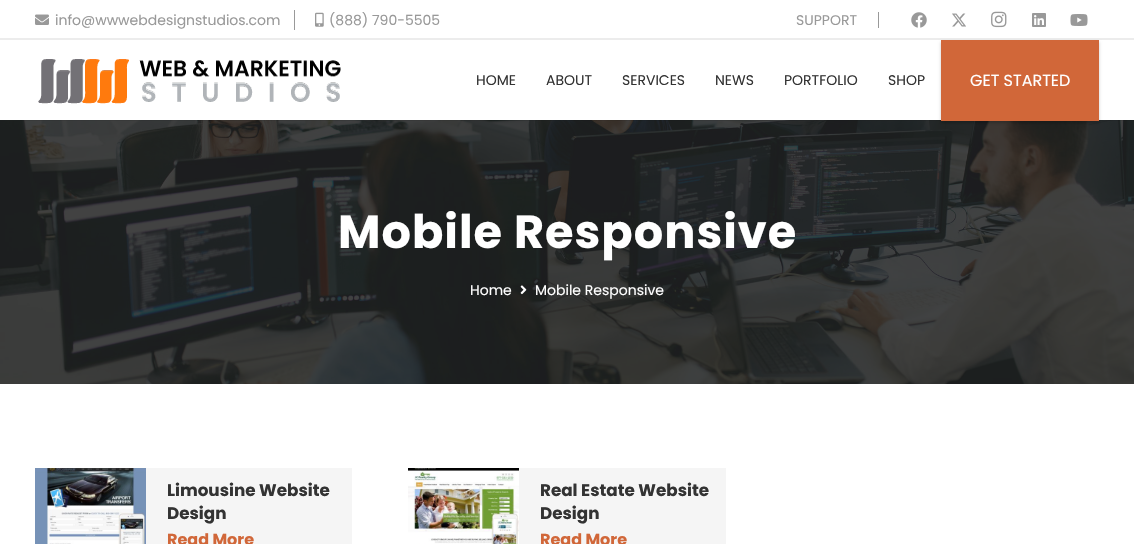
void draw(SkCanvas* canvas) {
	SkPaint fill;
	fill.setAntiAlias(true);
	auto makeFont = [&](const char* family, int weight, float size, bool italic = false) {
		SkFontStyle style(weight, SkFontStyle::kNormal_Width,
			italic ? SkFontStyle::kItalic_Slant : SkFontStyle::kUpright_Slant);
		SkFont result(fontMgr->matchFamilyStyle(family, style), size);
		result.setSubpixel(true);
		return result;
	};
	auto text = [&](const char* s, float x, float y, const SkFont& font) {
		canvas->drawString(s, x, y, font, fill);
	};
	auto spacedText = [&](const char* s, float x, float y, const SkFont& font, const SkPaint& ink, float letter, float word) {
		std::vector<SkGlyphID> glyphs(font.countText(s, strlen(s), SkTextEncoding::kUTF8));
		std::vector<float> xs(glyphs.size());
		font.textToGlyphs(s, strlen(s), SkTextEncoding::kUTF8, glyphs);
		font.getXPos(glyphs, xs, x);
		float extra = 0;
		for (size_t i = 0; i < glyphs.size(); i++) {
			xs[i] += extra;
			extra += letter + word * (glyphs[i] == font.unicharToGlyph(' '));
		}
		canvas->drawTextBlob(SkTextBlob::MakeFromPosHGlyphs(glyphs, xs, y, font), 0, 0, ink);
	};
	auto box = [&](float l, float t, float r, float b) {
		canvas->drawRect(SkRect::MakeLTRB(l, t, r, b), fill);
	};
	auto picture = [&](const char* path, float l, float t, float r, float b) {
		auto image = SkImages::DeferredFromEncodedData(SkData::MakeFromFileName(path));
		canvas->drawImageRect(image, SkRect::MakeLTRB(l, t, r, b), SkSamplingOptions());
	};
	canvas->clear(0xFFFFFFFF);
	fill.setColor(0xFFECECEC);
	box(0, 38, 1134, 40);
	fill.setColor(0xFF999999);
	box(294, 10, 295, 30);
	picture("image0.png", 35, 14, 49, 25);
	picture("image1.png", 315, 12, 324, 27);
	box(878, 12, 879, 28);
	picture("image2.png", 911, 12, 927, 28);
	picture("image3.png", 952, 13, 966, 27);
	picture("image4.png", 991, 11, 1007, 28);
	picture("image5.png", 1032, 13, 1046, 27);
	picture("image6.png", 1070, 14, 1088, 26);
	picture("image8.png", 0, 120, 1134, 384);
	fill.setColor(0x14000000);
	box(20, 120, 1134, 121);
	picture("image7.png", 38, 59, 341, 104);
	fill.setColor(0x33000000);
	fill.setMaskFilter(SkMaskFilter::MakeBlur(kNormal_SkBlurStyle, 1.5f));
	canvas->drawRect(SkRect::MakeLTRB(941, 42, 1099, 123), fill);
	fill.setMaskFilter(nullptr);
	fill.setColor(0xFFD16739);
	box(941, 40, 1099, 121);
	picture("image9.png", 520, 285, 527, 295);
	fill.setColor(0xFFF5F5F5);
	box(146, 468, 352, 544);
	picture("image10.png", 35, 468, 146, 544);
	box(519, 468, 726, 544);
	picture("image11.png", 408, 468, 519, 544);
	auto font1 = makeFont("Poppins", 400, 14);
	fill.setColor(0xFF999999);
	text("info@wwwebdesignstudios.com", 55, 25, font1);
	text("(888) 790-5505", 329, 25, font1);
	text("SUPPORT", 796, 25, font1);
	fill.setColor(0xFF333333);
	text("HOME", 476, 85, font1);
	text("ABOUT", 546, 85, font1);
	text("SERVICES", 622, 85, font1);
	text("NEWS", 715, 85, font1);
	text("PORTFOLIO", 784, 85, font1);
	text("SHOP", 888, 85, font1);
	auto font2 = makeFont("Poppins", 400, 16);
	fill.setColor(0xFFFFFFFF);
	text("GET STARTED", 970, 86, font2);
	auto font3 = makeFont("Poppins", 700, 46.25f);
	spacedText("Mobile Responsive", 338, 248, font3, fill, 1, 0);
	text("Home", 470, 295, font1);
	text("Mobile Responsive", 535, 295, font1);
	auto font4 = makeFont("Poppins", 700, 16.75f);
	fill.setColor(0xFF333333);
	text("Limousine Website", 167, 496, font4);
	text("Design", 167, 519, font4);
	auto font5 = makeFont("Poppins", 700, 16);
	fill.setColor(0xFFD16739);
	text("Read More", 167, 545, font5);
	fill.setColor(0xFF333333);
	text("Real Estate Website", 540, 496, font4);
	text("Design", 540, 519, font4);
	fill.setColor(0xFFD16739);
	text("Read More", 540, 545, font5);
}
